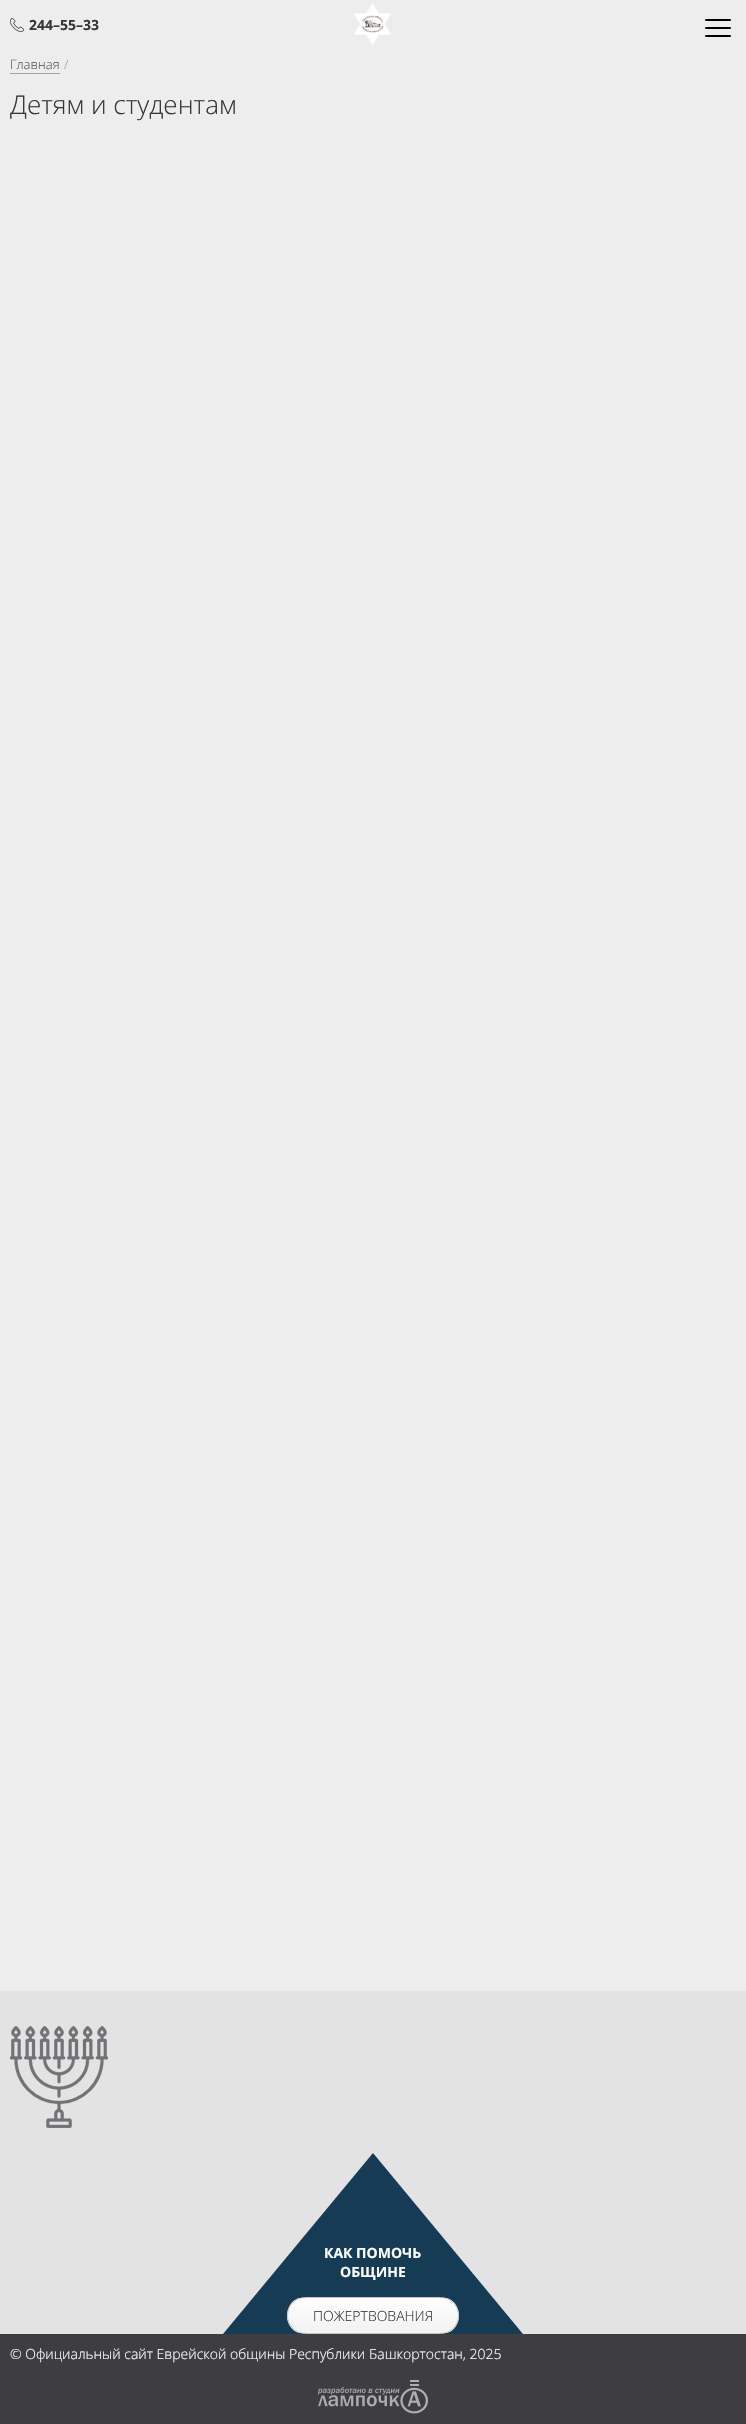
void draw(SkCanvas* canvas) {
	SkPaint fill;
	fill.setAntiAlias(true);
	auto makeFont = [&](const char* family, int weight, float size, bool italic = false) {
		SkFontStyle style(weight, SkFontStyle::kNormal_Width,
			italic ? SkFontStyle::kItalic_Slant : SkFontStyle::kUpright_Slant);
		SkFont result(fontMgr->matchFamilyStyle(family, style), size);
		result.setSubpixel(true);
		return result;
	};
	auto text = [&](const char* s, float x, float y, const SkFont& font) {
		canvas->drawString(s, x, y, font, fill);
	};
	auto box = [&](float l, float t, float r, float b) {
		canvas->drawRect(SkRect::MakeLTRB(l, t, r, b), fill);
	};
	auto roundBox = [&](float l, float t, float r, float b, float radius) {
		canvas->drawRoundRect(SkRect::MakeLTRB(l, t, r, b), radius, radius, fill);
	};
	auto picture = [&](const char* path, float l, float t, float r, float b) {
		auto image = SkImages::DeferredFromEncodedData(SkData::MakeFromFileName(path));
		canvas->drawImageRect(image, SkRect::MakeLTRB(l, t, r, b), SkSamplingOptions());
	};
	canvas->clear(0xFFEDEDED);
	picture("image0.png", 10, 18, 24, 32);
	picture("image1.png", 354, 3, 391, 45);
	fill.setColor(0xFF000000);
	roundBox(705, 27, 731, 29, 1);
	roundBox(705, 19, 731, 21, 1);
	roundBox(705, 35, 731, 37, 1);
	fill.setColor(0xFFA4A4A4);
	box(10, 73, 60, 74);
	fill.setColor(0xFFE3E3E3);
	box(0, 1991, 746, 2334);
	picture("image2.png", 10, 2026, 108, 2128);
	fill.setColor(0xFF163C55);
	canvas->drawPath(SkPathBuilder().moveTo(373, 2153).lineTo(223, 2334).lineTo(523, 2334).close().detach(), fill);
	{
		const SkColor colors[] = {0xFFF2F2F2, 0xFFFFFFFF};
		const float stops[] = {0, 1};
		const SkPoint ends[] = {{373, 2333}, {373, 2298}};
		fill.setShader(SkGradientShader::MakeLinear(ends, colors, stops, 2, SkTileMode::kClamp));
		fill.setAlpha(255);
	}
	canvas->drawPath(SkPathBuilder().moveTo(299, 2333).cubicTo(292, 2331, 287, 2324, 287, 2316).cubicTo(287, 2307, 292, 2300, 299, 2298).lineTo(447, 2298).cubicTo(454, 2300, 459, 2307, 459, 2316).cubicTo(459, 2324, 454, 2331, 447, 2333).close().detach(), fill);
	fill.setStyle(SkPaint::kStroke_Style);
	fill.setStrokeWidth(1);
	fill.setShader(nullptr);
	fill.setColor(0xFFC4C4C4);
	canvas->drawRoundRect(SkRect::MakeLTRB(287.5f, 2297.5f, 458.5f, 2333.5f), 18, 18, fill);
	fill.setStyle(SkPaint::kFill_Style);
	fill.setColor(0xFF3E3E42);
	box(0, 2334, 746, 2424);
	picture("image3.png", 318, 2380, 428, 2414);
	auto font1 = makeFont("Open Sans", 700, 14);
	fill.setColor(0xFF373737);
	text("244–55–33", 29, 30, font1);
	auto font2 = makeFont("Open Sans", 300, 13);
	fill.setColor(0xFF5A5A5A);
	text("Главная", 10, 69, font2);
	fill.setColor(0xFFA3A3A3);
	text("/", 64, 69, font2);
	auto font3 = makeFont("Open Sans", 300, 26);
	fill.setColor(0xFF373737);
	text("Детям и студентам", 10, 114, font3);
	fill.setColor(0xFFFFFFFF);
	text("КАК ПОМОЧЬ", 324, 2258, font1);
	text("ОБЩИНЕ", 340, 2277, font1);
	auto font4 = makeFont("Open Sans", 300, 14);
	fill.setColor(0xFF373737);
	text("ПОЖЕРТВОВАНИЯ", 313, 2321, font4);
	fill.setColor(0xFFFFFFFF);
	text("© Официальный сайт Еврейской общины Республики Башкортостан, 2025", 10, 2359, font4);
}
